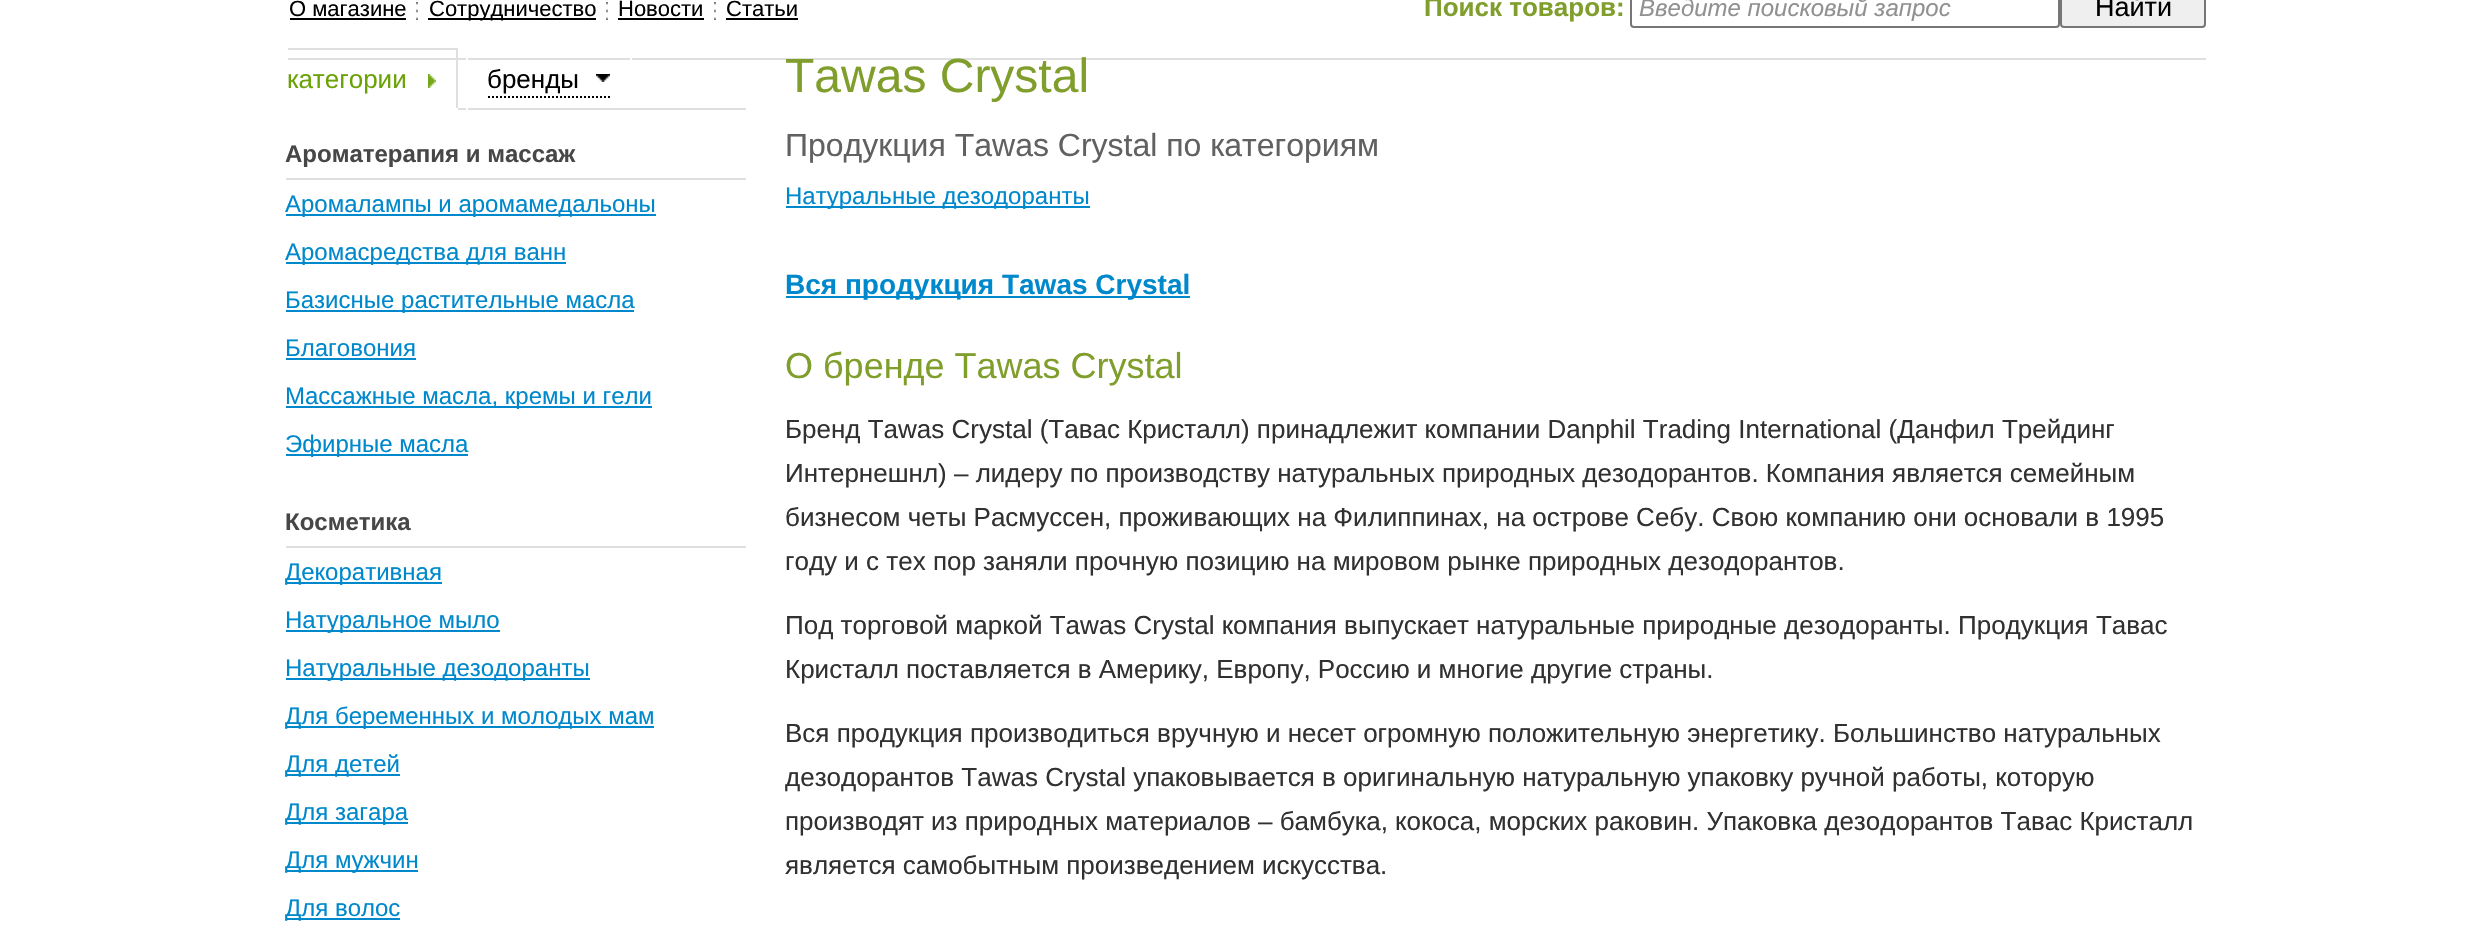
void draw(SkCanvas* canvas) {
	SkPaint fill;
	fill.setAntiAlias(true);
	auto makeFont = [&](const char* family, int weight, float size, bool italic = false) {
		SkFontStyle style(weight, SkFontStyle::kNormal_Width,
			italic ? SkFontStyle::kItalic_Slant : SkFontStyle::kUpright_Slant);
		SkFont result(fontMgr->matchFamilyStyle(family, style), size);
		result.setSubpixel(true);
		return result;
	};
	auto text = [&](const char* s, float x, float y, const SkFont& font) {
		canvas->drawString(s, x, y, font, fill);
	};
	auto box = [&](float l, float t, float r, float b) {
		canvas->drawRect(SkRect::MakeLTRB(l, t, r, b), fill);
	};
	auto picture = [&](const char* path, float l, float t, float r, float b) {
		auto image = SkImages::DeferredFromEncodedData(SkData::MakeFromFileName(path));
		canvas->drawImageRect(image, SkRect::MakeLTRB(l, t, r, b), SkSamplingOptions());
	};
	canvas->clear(0xFFFFFFFF);
	fill.setColor(0xFF000000);
	box(290, 18, 406, 20);
	picture("image0.png", 416, 2, 418, 20);
	box(428, 18, 596, 20);
	picture("image0.png", 606, 2, 608, 20);
	box(618, 18, 704, 20);
	picture("image0.png", 714, 2, 716, 20);
	box(726, 18, 798, 20);
	fill.setStyle(SkPaint::kStroke_Style);
	fill.setStrokeWidth(2);
	fill.setColor(0xFF767676);
	canvas->drawRoundRect(SkRect::MakeLTRB(1631, -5, 2059, 27), 3, 3, fill);
	fill.setStyle(SkPaint::kFill_Style);
	fill.setColor(0xFFEFEFEF);
	canvas->drawRoundRect(SkRect::MakeLTRB(2061, -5, 2205, 27), 3, 3, fill);
	fill.setStyle(SkPaint::kStroke_Style);
	fill.setColor(0xFF767676);
	canvas->drawRoundRect(SkRect::MakeLTRB(2061, -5, 2205, 27), 3, 3, fill);
	fill.setStyle(SkPaint::kFill_Style);
	fill.setColor(0xFFDFDFDF);
	box(458, 108, 746, 110);
	box(286, 48, 458, 50);
	box(286, 58, 2206, 60);
	box(456, 48, 458, 110);
	fill.setColor(0xFFFFFFFF);
	box(456, 108, 458, 110);
	box(286, 48, 288, 60);
	picture("image1.png", 428, 74, 436, 88);
	box(630, 58, 632, 110);
	fill.setColor(0xFFDFDFDF);
	box(630, 108, 632, 110);
	fill.setColor(0xFFFFFFFF);
	box(466, 58, 468, 110);
	picture("image2.png", 596, 74, 610, 82);
	fill.setStyle(SkPaint::kStroke_Style);
	fill.setColor(0xFF000000);
	fill.setPathEffect(SkDashPathEffect::Make({{2, 2}}, 0));
	canvas->drawPath(SkPathBuilder().moveTo(488, 97).lineTo(610, 97).detach(), fill);
	fill.setPathEffect(nullptr);
	fill.setStyle(SkPaint::kFill_Style);
	fill.setColor(0xFFDFDFDF);
	box(286, 178, 746, 180);
	fill.setColor(0xFF0088CC);
	box(286, 214, 656, 216);
	box(286, 262, 566, 264);
	box(286, 310, 634, 312);
	box(286, 358, 416, 360);
	box(286, 406, 652, 408);
	box(286, 454, 468, 456);
	fill.setColor(0xFFDFDFDF);
	box(286, 546, 746, 548);
	fill.setColor(0xFF0088CC);
	box(286, 582, 442, 584);
	box(286, 630, 500, 632);
	box(286, 678, 590, 680);
	box(286, 726, 654, 728);
	box(286, 774, 400, 776);
	box(286, 822, 408, 824);
	box(286, 870, 418, 872);
	box(286, 918, 400, 920);
	box(786, 206, 1090, 208);
	box(786, 296, 1190, 298);
	auto font1 = makeFont("Liberation Sans", 400, 22);
	fill.setColor(0xFF000000);
	text("О магазине", 289, 16, font1);
	text("Сотрудничество", 429, 16, font1);
	text("Новости", 618, 16, font1);
	text("Статьи", 726, 16, font1);
	auto font2 = makeFont("Liberation Sans", 700, 26);
	fill.setColor(0xFF809E2C);
	text("Поиск товаров:", 1424, 16, font2);
	auto font3 = makeFont("Liberation Sans", 400, 24, true);
	fill.setColor(0xFF919191);
	text("Введите поисковый запрос", 1639, 16, font3);
	auto font4 = makeFont("Liberation Sans", 400, 27);
	fill.setColor(0xFF000000);
	text("Найти", 2095, 16, font4);
	auto font5 = makeFont("Liberation Sans", 400, 26);
	fill.setColor(0xFF6BA208);
	text("категории", 287, 88, font5);
	fill.setColor(0xFF000000);
	text("бренды", 487, 88, font5);
	auto font6 = makeFont("Liberation Sans", 700, 24);
	fill.setColor(0xFF474747);
	text("Ароматерапия и массаж", 285, 162, font6);
	auto font7 = makeFont("Liberation Sans", 400, 24);
	fill.setColor(0xFF0088CC);
	text("Аромалампы и аромамедальоны", 285, 212, font7);
	text("Аромасредства для ванн", 285, 260, font7);
	text("Базисные растительные масла", 285, 308, font7);
	text("Благовония", 285, 356, font7);
	text("Массажные масла, кремы и гели", 285, 404, font7);
	text("Эфирные масла", 285, 452, font7);
	fill.setColor(0xFF474747);
	text("Косметика", 285, 530, font6);
	fill.setColor(0xFF0088CC);
	text("Декоративная", 285, 580, font7);
	text("Натуральное мыло", 285, 628, font7);
	text("Натуральные дезодоранты", 285, 676, font7);
	text("Для беременных и молодых мам", 285, 724, font7);
	text("Для детей", 285, 772, font7);
	text("Для загара", 285, 820, font7);
	text("Для мужчин", 285, 868, font7);
	text("Для волос", 285, 916, font7);
	auto font8 = makeFont("Liberation Sans", 400, 48);
	fill.setColor(0xFF809E2C);
	text("Tawas Crystal", 785, 92, font8);
	auto font9 = makeFont("Liberation Sans", 400, 32);
	fill.setColor(0xFF616161);
	text("Продукция Tawas Crystal по категориям", 785, 156, font9);
	fill.setColor(0xFF0088CC);
	text("Натуральные дезодоранты", 785, 204, font7);
	auto font10 = makeFont("Liberation Sans", 700, 28);
	text("Вся продукция Tawas Crystal", 785, 294, font10);
	auto font11 = makeFont("Liberation Sans", 400, 36);
	fill.setColor(0xFF809E2C);
	text("О бренде Tawas Crystal", 785, 378, font11);
	fill.setColor(0xFF313131);
	text("Бренд Tawas Crystal (Тавас Кристалл) принадлежит компании Danphil Trading International (Данфил Трейдинг", 785, 438, font5);
	text("Интернешнл) – лидеру по производству натуральных природных дезодорантов. Компания является семейным", 785, 482, font5);
	text("бизнесом четы Расмуссен, проживающих на Филиппинах, на острове Себу. Свою компанию они основали в 1995", 785, 526, font5);
	text("году и с тех пор заняли прочную позицию на мировом рынке природных дезодорантов.", 785, 570, font5);
	text("Под торговой маркой Tawas Crystal компания выпускает натуральные природные дезодоранты. Продукция Тавас", 785, 634, font5);
	text("Кристалл поставляется в Америку, Европу, Россию и многие другие страны.", 785, 678, font5);
	text("Вся продукция производиться вручную и несет огромную положительную энергетику. Большинство натуральных", 785, 742, font5);
	text("дезодорантов Tawas Crystal упаковывается в оригинальную натуральную упаковку ручной работы, которую", 785, 786, font5);
	text("производят из природных материалов – бамбука, кокоса, морских раковин. Упаковка дезодорантов Тавас Кристалл", 785, 830, font5);
	text("является самобытным произведением искусства.", 785, 874, font5);
}
